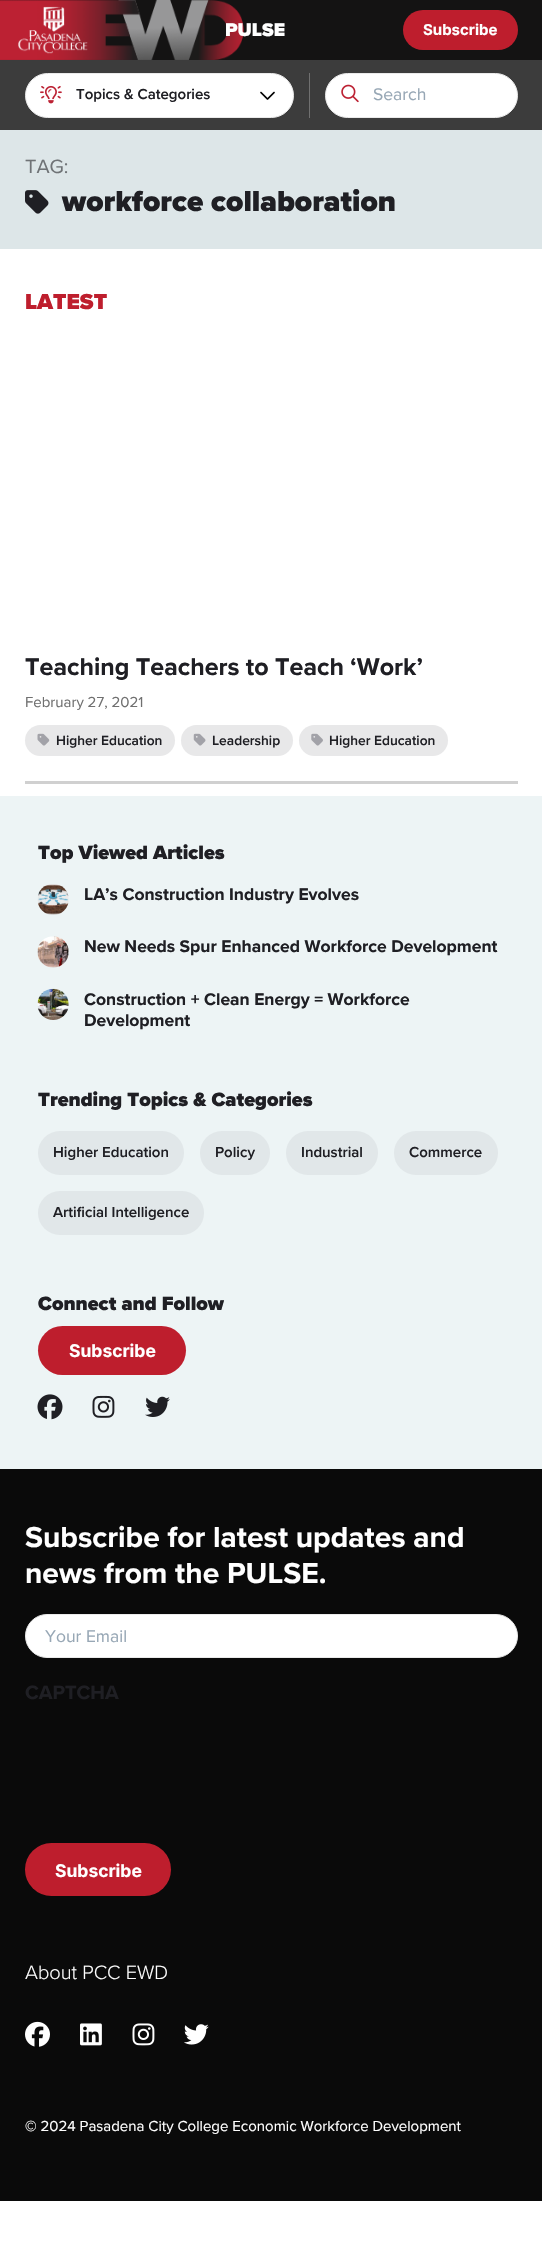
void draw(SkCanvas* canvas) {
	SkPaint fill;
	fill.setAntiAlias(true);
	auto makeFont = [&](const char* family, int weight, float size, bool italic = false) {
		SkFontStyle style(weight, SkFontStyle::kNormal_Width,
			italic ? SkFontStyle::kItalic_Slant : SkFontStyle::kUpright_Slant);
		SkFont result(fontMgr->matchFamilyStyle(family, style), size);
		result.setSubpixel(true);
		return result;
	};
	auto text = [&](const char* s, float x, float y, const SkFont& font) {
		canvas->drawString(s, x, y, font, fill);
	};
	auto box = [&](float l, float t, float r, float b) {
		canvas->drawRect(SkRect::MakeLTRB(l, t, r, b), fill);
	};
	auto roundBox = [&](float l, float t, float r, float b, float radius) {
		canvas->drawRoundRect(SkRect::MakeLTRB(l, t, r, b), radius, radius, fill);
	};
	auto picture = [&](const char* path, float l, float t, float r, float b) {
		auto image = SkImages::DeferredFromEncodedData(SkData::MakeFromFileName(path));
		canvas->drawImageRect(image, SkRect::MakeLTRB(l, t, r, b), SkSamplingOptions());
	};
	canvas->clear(0xFFFFFFFF);
	fill.setColor(0xFFDDE6E8);
	box(0, 130, 542, 249);
	fill.setColor(0xFF141313);
	box(0, 0, 542, 60);
	picture("image0.png", 0, 0, 244, 60);
	fill.setColor(0xFFBE1E2D);
	roundBox(403, 10, 518, 50, 20);
	fill.setColor(0xFF3C3C3C);
	box(0, 60, 542, 130);
	fill.setColor(0xFFFFFFFF);
	canvas->drawRoundRect(SkRect::MakeLTRB(25.5f, 73.5f, 293.5f, 117.5f), 22, 22, fill);
	fill.setStyle(SkPaint::kStroke_Style);
	fill.setStrokeWidth(1);
	fill.setColor(0xFFEAEAEA);
	canvas->drawRoundRect(SkRect::MakeLTRB(25.5f, 73.5f, 293.5f, 117.5f), 22, 22, fill);
	picture("image1.png", 40, 85, 62, 104);
	picture("image2.png", 260, 91, 275, 100);
	fill.setStyle(SkPaint::kFill_Style);
	fill.setColor(0xFF707070);
	box(309, 73, 310, 118);
	fill.setColor(0xFFFFFFFF);
	canvas->drawRoundRect(SkRect::MakeLTRB(325.5f, 73.5f, 517.5f, 117.5f), 22, 22, fill);
	fill.setStyle(SkPaint::kStroke_Style);
	fill.setColor(0xFFEAEAEA);
	canvas->drawRoundRect(SkRect::MakeLTRB(325.5f, 73.5f, 517.5f, 117.5f), 22, 22, fill);
	picture("image3.png", 341, 84, 359, 103);
	picture("image4.png", 25, 190, 49, 214);
	fill.setStyle(SkPaint::kFill_Style);
	fill.setColor(0xFFD0D0D0);
	box(25, 781, 518, 784);
	fill.setColor(0xFFE8E8E9);
	roundBox(25, 725, 175, 756, 15.5f);
	picture("image5.png", 37, 733, 50, 746);
	roundBox(181, 725, 293, 756, 15.5f);
	picture("image6.png", 193, 733, 206, 746);
	roundBox(299, 725, 448, 756, 15.5f);
	picture("image7.png", 311, 733, 323, 746);
	fill.setColor(0xFFEDF4F5);
	box(0, 796, 542, 1469);
	picture("image8.png", 37, 884, 69, 915);
	picture("image9.png", 37, 936, 69, 968);
	picture("image10.png", 37, 988, 69, 1020);
	fill.setColor(0xFFE1E7E9);
	roundBox(38, 1131, 184, 1175, 22);
	roundBox(200, 1131, 270, 1175, 22);
	roundBox(286, 1131, 378, 1175, 22);
	roundBox(394, 1131, 498, 1175, 22);
	roundBox(38, 1191, 204, 1235, 22);
	fill.setColor(0xFFBE1E2D);
	roundBox(38, 1326, 186, 1375, 24.5f);
	picture("image11.png", 37, 1394, 63, 1420);
	picture("image12.png", 92, 1395, 115, 1418);
	picture("image13.png", 145, 1396, 170, 1417);
	fill.setColor(0xFF0A0A0A);
	box(0, 1469, 542, 2201);
	fill.setColor(0xFFFFFFFF);
	canvas->drawRoundRect(SkRect::MakeLTRB(25.5f, 1614.5f, 517.5f, 1657.5f), 21.5f, 21.5f, fill);
	fill.setStyle(SkPaint::kStroke_Style);
	fill.setColor(0xFFEAEAEA);
	canvas->drawRoundRect(SkRect::MakeLTRB(25.5f, 1614.5f, 517.5f, 1657.5f), 21.5f, 21.5f, fill);
	fill.setStyle(SkPaint::kFill_Style);
	fill.setColor(0xFFBE1E2D);
	roundBox(25, 1843, 171, 1896, 26.5f);
	picture("image14.png", 25, 2021, 50, 2047);
	picture("image15.png", 80, 2023, 102, 2046);
	picture("image16.png", 132, 2023, 155, 2046);
	picture("image17.png", 184, 2024, 209, 2045);
	auto font1 = makeFont("Proxima Nova", 900, 19);
	fill.setColor(0xFFFFFFFF);
	text("PULSE", 225, 36, font1);
	auto font2 = makeFont("Inter", 700, 15);
	text("Subscribe", 423, 35, font2);
	auto font3 = makeFont("Proxima Nova", 600, 15);
	fill.setColor(0xFF1F1F24);
	text("Topics & Categories", 76, 99, font3);
	auto font4 = makeFont("Proxima Nova", 400, 17.5f);
	fill.setColor(0xFF97A7B5);
	text("Search", 373, 100, font4);
	auto font5 = makeFont("Proxima Nova", 400, 20);
	fill.setColor(0xFF6F7376);
	text("TAG:", 25, 173, font5);
	auto font6 = makeFont("Proxima Nova", 900, 30);
	fill.setColor(0xFF1F1F24);
	text("workforce collaboration", 62, 211, font6);
	auto font7 = makeFont("Proxima Nova", 900, 22.5f);
	fill.setColor(0xFFBE1E2D);
	text("LATEST", 25, 309, font7);
	auto font8 = makeFont("Proxima Nova", 700, 25);
	fill.setColor(0xFF1F1F24);
	text("Teaching Teachers to Teach ‘Work’", 25, 675, font8);
	auto font9 = makeFont("Proxima Nova", 400, 15);
	fill.setColor(0xFF707070);
	text("February 27, 2021", 25, 707, font9);
	auto font10 = makeFont("Proxima Nova", 600, 13.75f);
	fill.setColor(0xFF1F1F24);
	text("Higher Education", 56, 745, font10);
	text("Leadership", 212, 745, font10);
	text("Higher Education", 329, 745, font10);
	auto font11 = makeFont("Proxima Nova", 900, 20);
	text("Top Viewed Articles", 38, 859, font11);
	auto font12 = makeFont("Proxima Nova", 700, 17.5f);
	text("LA’s Construction Industry Evolves", 84, 900, font12);
	text("New Needs Spur Enhanced Workforce Development", 84, 952, font12);
	text("Construction + Clean Energy = Workforce", 84, 1005, font12);
	text("Development", 84, 1026, font12);
	text("Trending Topics & Categories", 38, 1106, font11);
	text("Higher Education", 53, 1157, font3);
	text("Policy", 215, 1157, font3);
	text("Industrial", 301, 1157, font3);
	text("Commerce", 409, 1157, font3);
	text("Artificial Intelligence", 53, 1217, font3);
	text("Connect and Follow", 38, 1310, font11);
	auto font13 = makeFont("Inter", 700, 17.5f);
	fill.setColor(0xFFFFFFFF);
	text("Subscribe", 69, 1357, font13);
	auto font14 = makeFont("Proxima Nova", 700, 30);
	text("Subscribe for latest updates and", 25, 1547, font14);
	text("news from the PULSE.", 25, 1583, font14);
	fill.setColor(0xFF97A7B5);
	text("Your Email", 45, 1642, font4);
	auto font15 = makeFont("Proxima Nova", 700, 20);
	fill.setColor(0xFF1F1F24);
	text("CAPTCHA", 25, 1699, font15);
	fill.setColor(0xFFFFFFFF);
	text("Subscribe", 55, 1877, font13);
	auto font16 = makeFont("Proxima Nova", 300, 20);
	text("About PCC EWD", 25, 1979, font16);
	text("© 2024 Pasadena City College Economic Workforce Development", 25, 2131, font9);
}
